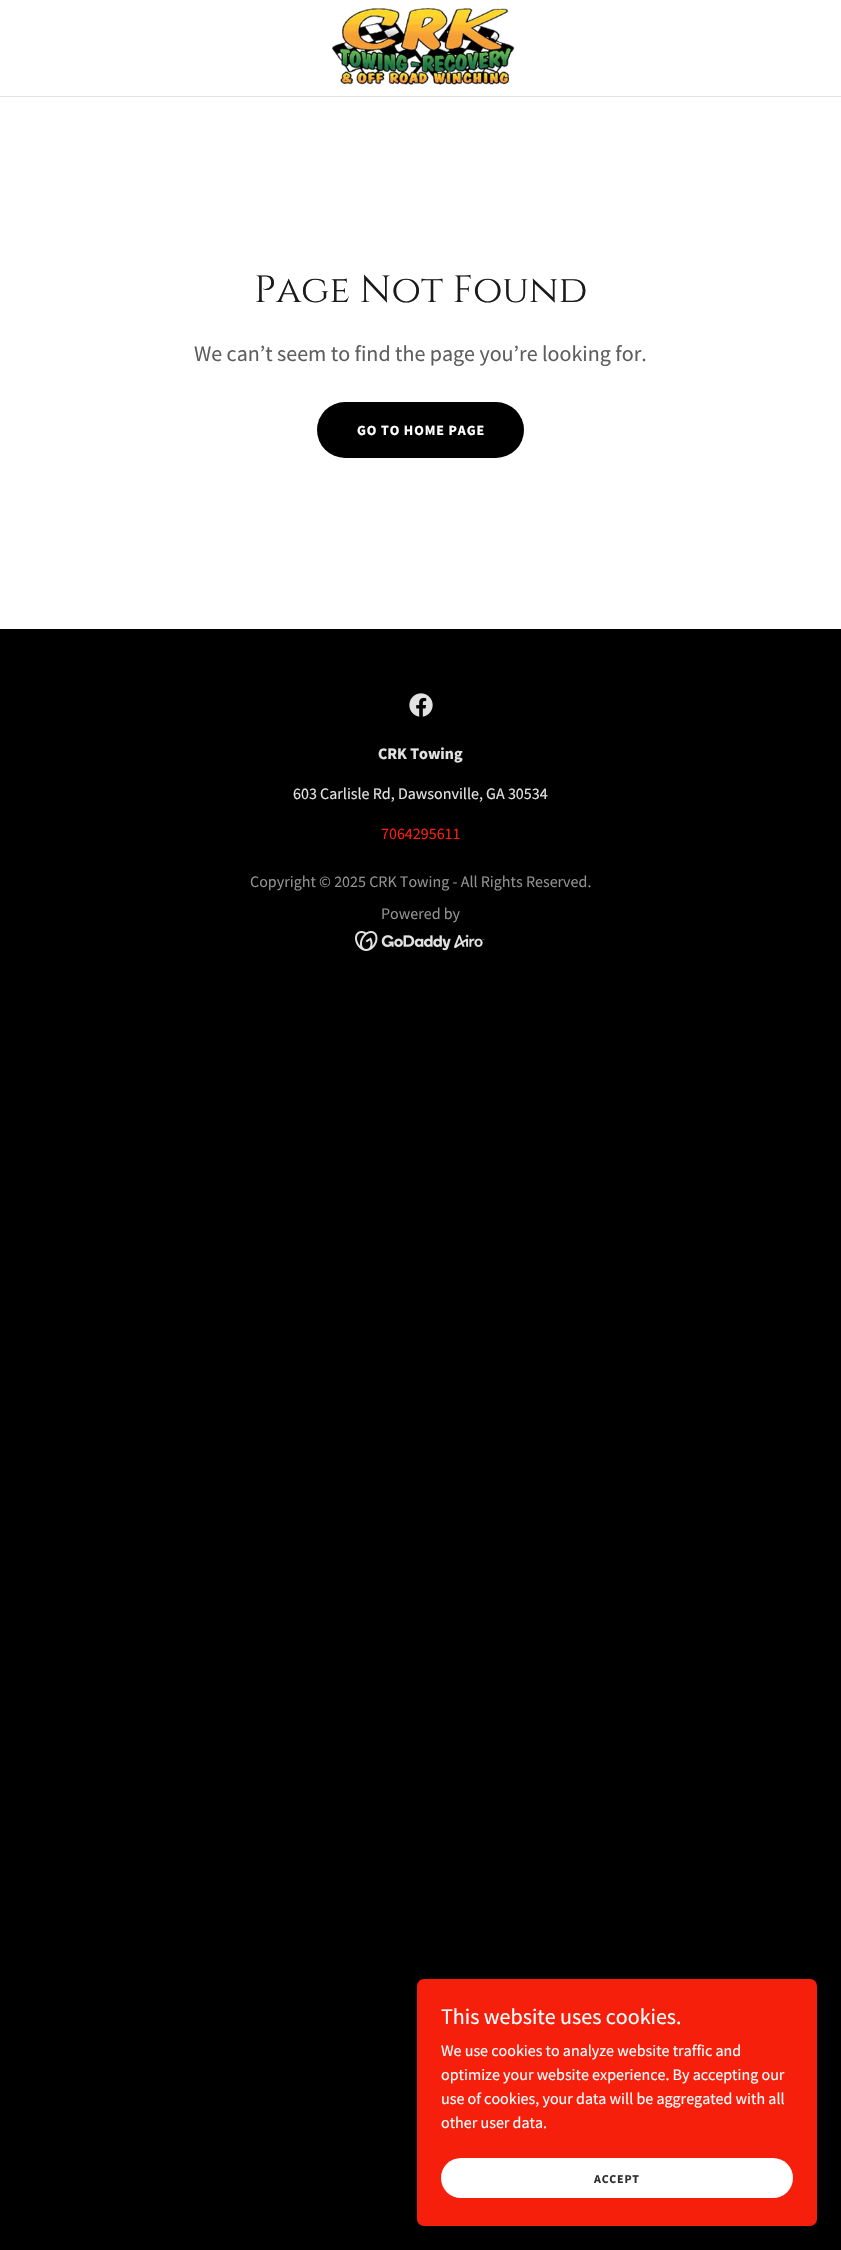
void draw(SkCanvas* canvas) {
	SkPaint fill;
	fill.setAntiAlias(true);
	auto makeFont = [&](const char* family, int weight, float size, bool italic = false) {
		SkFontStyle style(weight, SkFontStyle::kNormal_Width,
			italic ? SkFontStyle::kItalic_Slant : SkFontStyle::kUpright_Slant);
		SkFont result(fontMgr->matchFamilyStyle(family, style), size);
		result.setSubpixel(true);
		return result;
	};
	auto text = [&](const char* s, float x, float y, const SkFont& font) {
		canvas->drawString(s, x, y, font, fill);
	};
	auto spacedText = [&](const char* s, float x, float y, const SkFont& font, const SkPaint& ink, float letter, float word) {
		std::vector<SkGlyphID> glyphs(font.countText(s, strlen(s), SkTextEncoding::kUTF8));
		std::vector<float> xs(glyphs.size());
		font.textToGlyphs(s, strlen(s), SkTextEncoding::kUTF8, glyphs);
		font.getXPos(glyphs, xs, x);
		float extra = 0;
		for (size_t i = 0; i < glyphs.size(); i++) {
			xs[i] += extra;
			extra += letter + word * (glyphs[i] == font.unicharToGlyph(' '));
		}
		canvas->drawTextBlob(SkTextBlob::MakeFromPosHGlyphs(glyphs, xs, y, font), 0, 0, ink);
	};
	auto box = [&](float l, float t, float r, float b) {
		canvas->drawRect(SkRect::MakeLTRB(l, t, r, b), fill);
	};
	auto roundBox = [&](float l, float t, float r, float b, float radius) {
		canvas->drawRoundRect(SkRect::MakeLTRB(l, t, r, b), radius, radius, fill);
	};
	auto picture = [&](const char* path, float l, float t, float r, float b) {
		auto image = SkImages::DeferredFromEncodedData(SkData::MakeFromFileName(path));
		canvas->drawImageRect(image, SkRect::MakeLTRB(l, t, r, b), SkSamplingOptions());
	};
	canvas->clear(0xFF000000);
	fill.setColor(0xFFFFFFFF);
	box(0, 0, 841, 96);
	picture("image0.png", 332, 8, 515, 85);
	fill.setColor(0xFFE2E2E2);
	box(0, 96, 841, 97);
	fill.setColor(0xFFFFFFFF);
	box(0, 97, 841, 629);
	fill.setColor(0xFF000000);
	roundBox(317, 402, 524, 458, 28);
	picture("image1.png", 409, 693, 433, 717);
	picture("image2.png", 355, 931, 485, 951);
	fill.setColor(0xFFF51F0C);
	roundBox(417, 1979, 817, 2226, 7);
	fill.setColor(0xFFFFFFFF);
	roundBox(441, 2158, 793, 2198, 20);
	auto font1 = makeFont("Cinzel", 400, 38);
	fill.setColor(0xFF1B1B1B);
	text("Page Not Found", 254, 302, font1);
	auto font2 = makeFont("Source Sans Pro", 400, 22);
	fill.setColor(0xFF5E5E5E);
	text("We can’t seem to find the page you’re looking for.", 194, 361, font2);
	auto font3 = makeFont("Source Sans Pro", 700, 14);
	fill.setColor(0xFFFFFFFF);
	spacedText("GO TO HOME PAGE", 357, 435, font3, fill, 0.9f, 0);
	auto font4 = makeFont("Source Sans Pro", 700, 16);
	fill.setColor(0xFFE2E2E2);
	text("CRK Towing", 378, 759, font4);
	auto font5 = makeFont("Source Sans Pro", 400, 16);
	text("603 Carlisle Rd, Dawsonville, GA 30534", 293, 799, font5);
	fill.setColor(0xFFF51F0C);
	text("7064295611", 381, 839, font5);
	fill.setColor(0xFF919191);
	text("Copyright © 2025 CRK Towing - All Rights Reserved.", 250, 887, font5);
	text("Powered by", 381, 919, font5);
	fill.setColor(0xFFFFFFFF);
	text("This website uses cookies.", 441, 2024, font2);
	text("We use cookies to analyze website traffic and", 441, 2056, font5);
	text("optimize your website experience. By accepting our", 441, 2080, font5);
	text("use of cookies, your data will be aggregated with all", 441, 2104, font5);
	text("other user data.", 441, 2128, font5);
	auto font6 = makeFont("Source Sans Pro", 700, 12);
	fill.setColor(0xFF303030);
	spacedText("ACCEPT", 594, 2183, font6, fill, 0.75f, 0);
}
